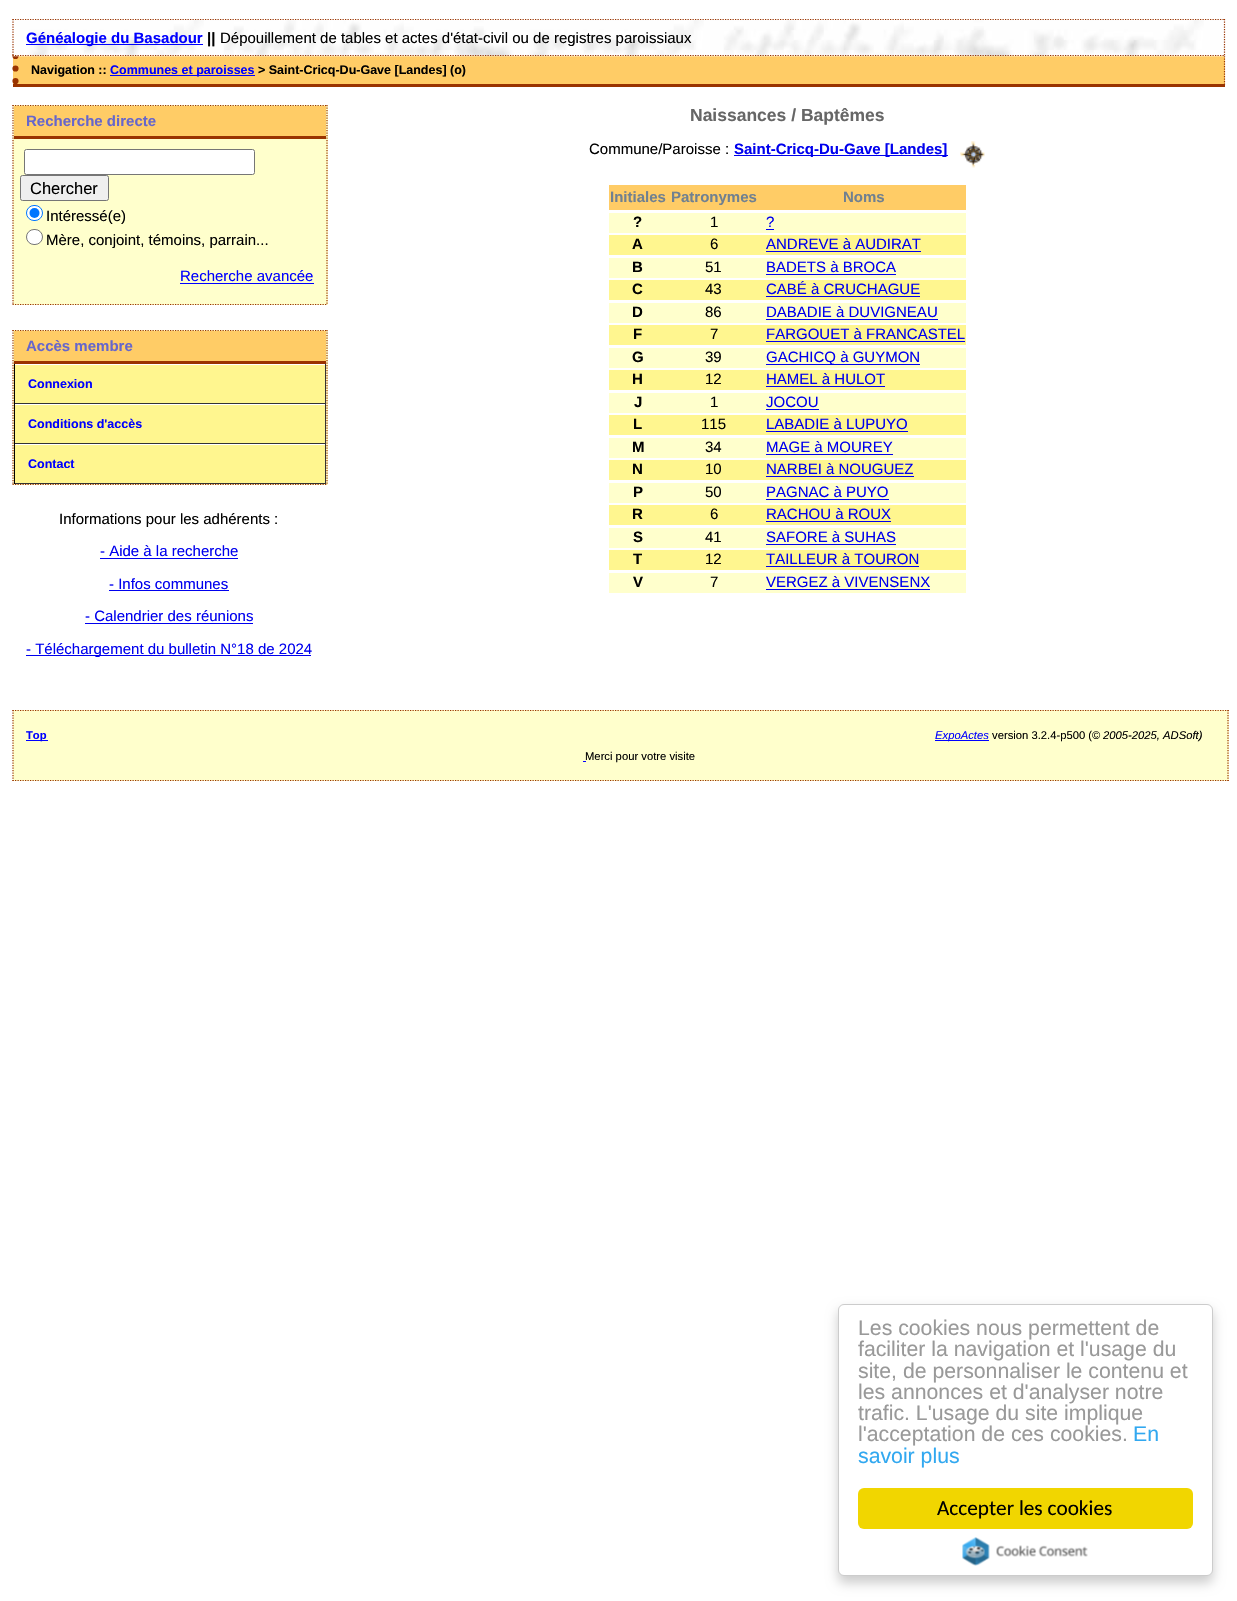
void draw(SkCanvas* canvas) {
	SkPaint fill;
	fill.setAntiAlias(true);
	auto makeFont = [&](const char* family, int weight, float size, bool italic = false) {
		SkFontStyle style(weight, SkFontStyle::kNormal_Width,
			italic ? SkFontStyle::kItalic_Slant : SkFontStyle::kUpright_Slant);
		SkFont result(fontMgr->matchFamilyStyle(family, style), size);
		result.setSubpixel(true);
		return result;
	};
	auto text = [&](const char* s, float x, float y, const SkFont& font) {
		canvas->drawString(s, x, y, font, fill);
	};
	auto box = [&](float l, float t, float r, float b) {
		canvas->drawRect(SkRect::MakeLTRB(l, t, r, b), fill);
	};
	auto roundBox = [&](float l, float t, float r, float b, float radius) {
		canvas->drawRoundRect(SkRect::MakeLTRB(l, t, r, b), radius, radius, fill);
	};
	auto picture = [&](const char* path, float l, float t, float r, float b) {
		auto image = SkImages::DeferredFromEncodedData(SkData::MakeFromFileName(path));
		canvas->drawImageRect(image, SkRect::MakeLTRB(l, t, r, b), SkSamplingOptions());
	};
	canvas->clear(0xFFFFFFFF);
	fill.setColor(0xFFFFCC66);
	box(13, 56, 1225, 84);
	fill.setStyle(SkPaint::kStroke_Style);
	fill.setStrokeWidth(1.2f);
	fill.setColor(0xFF993300);
	fill.setPathEffect(SkDashPathEffect::Make({{1.25f, 1.25f}}, 0));
	canvas->drawPath(SkPathBuilder().moveTo(1224.5f, 56).lineTo(1224.5f, 86).detach(), fill);
	fill.setPathEffect(nullptr);
	fill.setStyle(SkPaint::kFill_Style);
	box(13, 84, 1225, 87);
	fill.setStyle(SkPaint::kStroke_Style);
	fill.setStrokeWidth(6.2f);
	fill.setStrokeCap(SkPaint::kRound_Cap);
	fill.setPathEffect(SkDashPathEffect::Make({{0, 12.5f}}, 0));
	canvas->drawPath(SkPathBuilder().moveTo(15.5f, 56).lineTo(15.5f, 86).detach(), fill);
	fill.setPathEffect(nullptr);
	picture("image0.png", 12, 19, 1225, 57);
	fill.setStrokeWidth(1.2f);
	fill.setStrokeCap(SkPaint::kButt_Cap);
	fill.setPathEffect(SkDashPathEffect::Make({{1.25f, 1.25f}}, 0));
	canvas->drawPath(SkPathBuilder().moveTo(12.5f, 19.5f).lineTo(1225, 19.5f).detach(), fill);
	fill.setPathEffect(nullptr);
	fill.setPathEffect(SkDashPathEffect::Make({{1.25f, 1.25f}}, 0));
	canvas->drawPath(SkPathBuilder().moveTo(1224.5f, 19).lineTo(1224.5f, 56).detach(), fill);
	fill.setPathEffect(nullptr);
	fill.setPathEffect(SkDashPathEffect::Make({{1.25f, 1.25f}}, 0));
	canvas->drawPath(SkPathBuilder().moveTo(12.5f, 55.5f).lineTo(1225, 55.5f).detach(), fill);
	fill.setPathEffect(nullptr);
	fill.setPathEffect(SkDashPathEffect::Make({{1.25f, 1.25f}}, 0));
	canvas->drawPath(SkPathBuilder().moveTo(13, 19).lineTo(13, 56).detach(), fill);
	fill.setPathEffect(nullptr);
	fill.setStyle(SkPaint::kFill_Style);
	fill.setColor(0xFF0000FF);
	box(26, 44, 203, 45);
	box(110, 75, 255, 76);
	fill.setColor(0xFFFFFFCC);
	box(13, 105, 328, 305);
	fill.setStyle(SkPaint::kStroke_Style);
	fill.setColor(0xFF993300);
	fill.setPathEffect(SkDashPathEffect::Make({{1.25f, 1.25f}}, 0));
	canvas->drawPath(SkPathBuilder().moveTo(12.5f, 105.5f).lineTo(327.5f, 105.5f).detach(), fill);
	fill.setPathEffect(nullptr);
	fill.setPathEffect(SkDashPathEffect::Make({{1.25f, 1.25f}}, 0));
	canvas->drawPath(SkPathBuilder().moveTo(327, 105).lineTo(327, 305).detach(), fill);
	fill.setPathEffect(nullptr);
	fill.setPathEffect(SkDashPathEffect::Make({{1.25f, 1.25f}}, 0));
	canvas->drawPath(SkPathBuilder().moveTo(12.5f, 304.5f).lineTo(327.5f, 304.5f).detach(), fill);
	fill.setPathEffect(nullptr);
	fill.setPathEffect(SkDashPathEffect::Make({{1.25f, 1.25f}}, 0));
	canvas->drawPath(SkPathBuilder().moveTo(13, 105).lineTo(13, 305).detach(), fill);
	fill.setPathEffect(nullptr);
	fill.setStyle(SkPaint::kFill_Style);
	fill.setColor(0xFFFFCC66);
	box(14, 106, 326, 136);
	fill.setColor(0xFF993300);
	box(14, 136, 326, 139);
	fill.setColor(0xFFFFFFFF);
	canvas->drawRoundRect(SkRect::MakeLTRB(24.5f, 149.5f, 254.5f, 174.5f), 2, 2, fill);
	fill.setStyle(SkPaint::kStroke_Style);
	fill.setStrokeWidth(1);
	fill.setColor(0xFF767676);
	canvas->drawRoundRect(SkRect::MakeLTRB(24.5f, 149.5f, 254.5f, 174.5f), 2, 2, fill);
	fill.setStyle(SkPaint::kFill_Style);
	fill.setColor(0xFFEFEFEF);
	canvas->drawRoundRect(SkRect::MakeLTRB(20.5f, 175.5f, 108.5f, 200.5f), 2, 2, fill);
	fill.setStyle(SkPaint::kStroke_Style);
	fill.setColor(0xFF767676);
	canvas->drawRoundRect(SkRect::MakeLTRB(20.5f, 175.5f, 108.5f, 200.5f), 2, 2, fill);
	fill.setStyle(SkPaint::kFill_Style);
	fill.setColor(0xFFFFFFFF);
	canvas->drawRoundRect(SkRect::MakeLTRB(26.5f, 205.5f, 42.5f, 220.5f), 7.5f, 7.5f, fill);
	fill.setStyle(SkPaint::kStroke_Style);
	fill.setColor(0xFF0075FF);
	canvas->drawRoundRect(SkRect::MakeLTRB(26.5f, 205.5f, 42.5f, 220.5f), 7.5f, 7.5f, fill);
	fill.setStyle(SkPaint::kFill_Style);
	canvas->drawCircle(34.5f, 213, 5, fill);
	fill.setColor(0xFFFFFFFF);
	canvas->drawRoundRect(SkRect::MakeLTRB(26.5f, 229.5f, 42.5f, 244.5f), 7.5f, 7.5f, fill);
	fill.setStyle(SkPaint::kStroke_Style);
	fill.setColor(0xFF767676);
	canvas->drawRoundRect(SkRect::MakeLTRB(26.5f, 229.5f, 42.5f, 244.5f), 7.5f, 7.5f, fill);
	fill.setStyle(SkPaint::kFill_Style);
	fill.setColor(0xFF0000FF);
	box(180, 283, 314, 284);
	fill.setColor(0xFFFFFFCC);
	box(13, 330, 328, 485);
	fill.setStyle(SkPaint::kStroke_Style);
	fill.setStrokeWidth(1.2f);
	fill.setColor(0xFF993300);
	fill.setPathEffect(SkDashPathEffect::Make({{1.25f, 1.25f}}, 0));
	canvas->drawPath(SkPathBuilder().moveTo(12.5f, 330.5f).lineTo(327.5f, 330.5f).detach(), fill);
	fill.setPathEffect(nullptr);
	fill.setPathEffect(SkDashPathEffect::Make({{1.25f, 1.25f}}, 0));
	canvas->drawPath(SkPathBuilder().moveTo(327, 330).lineTo(327, 485).detach(), fill);
	fill.setPathEffect(nullptr);
	fill.setPathEffect(SkDashPathEffect::Make({{1.25f, 1.25f}}, 0));
	canvas->drawPath(SkPathBuilder().moveTo(12.5f, 484.5f).lineTo(327.5f, 484.5f).detach(), fill);
	fill.setPathEffect(nullptr);
	fill.setPathEffect(SkDashPathEffect::Make({{1.25f, 1.25f}}, 0));
	canvas->drawPath(SkPathBuilder().moveTo(13, 330).lineTo(13, 485).detach(), fill);
	fill.setPathEffect(nullptr);
	fill.setStyle(SkPaint::kFill_Style);
	fill.setColor(0xFFFFCC66);
	box(14, 331, 326, 361);
	fill.setColor(0xFF993300);
	box(14, 361, 326, 364);
	fill.setColor(0xFFFFF68F);
	box(15, 365, 325, 403);
	fill.setColor(0xFFFFFFFF);
	box(14, 364, 326, 365);
	fill.setColor(0xFF333333);
	box(325, 364, 326, 404);
	box(14, 403, 326, 404);
	fill.setColor(0xFF000000);
	box(14, 364, 15, 404);
	fill.setColor(0xFFFFF68F);
	box(15, 405, 325, 443);
	fill.setColor(0xFFFFFFFF);
	box(14, 404, 326, 405);
	fill.setColor(0xFF333333);
	box(325, 404, 326, 444);
	box(14, 443, 326, 444);
	fill.setColor(0xFF000000);
	box(14, 404, 15, 444);
	fill.setColor(0xFFFFF68F);
	box(15, 445, 325, 483);
	fill.setColor(0xFFFFFFFF);
	box(14, 444, 326, 445);
	fill.setColor(0xFF333333);
	box(325, 444, 326, 484);
	box(14, 483, 326, 484);
	fill.setColor(0xFF000000);
	box(14, 444, 15, 484);
	fill.setColor(0xFF0000EE);
	box(100, 558, 238, 559);
	box(109, 590, 229, 591);
	box(85, 623, 253, 624);
	box(26, 655, 311, 656);
	box(734, 155, 948, 156);
	picture("image1.png", 960, 141, 985, 168);
	fill.setColor(0xFFFFCC66);
	box(609, 185, 966, 210);
	fill.setColor(0xFFFFFFCC);
	box(609, 213, 966, 233);
	fill.setColor(0xFF0000EE);
	box(766, 229, 774, 230);
	fill.setColor(0xFFFFF68F);
	box(609, 235, 966, 255);
	fill.setColor(0xFF0000EE);
	box(766, 251, 921, 252);
	fill.setColor(0xFFFFFFCC);
	box(609, 258, 966, 278);
	fill.setColor(0xFF0000EE);
	box(766, 274, 896, 275);
	fill.setColor(0xFFFFF68F);
	box(609, 280, 966, 300);
	fill.setColor(0xFF0000EE);
	box(766, 296, 920, 297);
	fill.setColor(0xFFFFFFCC);
	box(609, 303, 966, 323);
	fill.setColor(0xFF0000EE);
	box(766, 319, 938, 320);
	fill.setColor(0xFFFFF68F);
	box(609, 325, 966, 345);
	fill.setColor(0xFF0000EE);
	box(766, 341, 965, 342);
	fill.setColor(0xFFFFFFCC);
	box(609, 348, 966, 368);
	fill.setColor(0xFF0000EE);
	box(766, 364, 920, 365);
	fill.setColor(0xFFFFF68F);
	box(609, 370, 966, 390);
	fill.setColor(0xFF0000EE);
	box(766, 386, 885, 387);
	fill.setColor(0xFFFFFFCC);
	box(609, 393, 966, 413);
	fill.setColor(0xFF0000EE);
	box(766, 409, 819, 410);
	fill.setColor(0xFFFFF68F);
	box(609, 415, 966, 435);
	fill.setColor(0xFF0000EE);
	box(766, 431, 908, 432);
	fill.setColor(0xFFFFFFCC);
	box(609, 438, 966, 458);
	fill.setColor(0xFF0000EE);
	box(766, 454, 893, 455);
	fill.setColor(0xFFFFF68F);
	box(609, 460, 966, 480);
	fill.setColor(0xFF0000EE);
	box(766, 476, 914, 477);
	fill.setColor(0xFFFFFFCC);
	box(609, 483, 966, 503);
	fill.setColor(0xFF0000EE);
	box(766, 499, 889, 500);
	fill.setColor(0xFFFFF68F);
	box(609, 505, 966, 525);
	fill.setColor(0xFF0000EE);
	box(766, 521, 891, 522);
	fill.setColor(0xFFFFFFCC);
	box(609, 528, 966, 548);
	fill.setColor(0xFF0000EE);
	box(766, 544, 896, 545);
	fill.setColor(0xFFFFF68F);
	box(609, 550, 966, 570);
	fill.setColor(0xFF0000EE);
	box(766, 566, 919, 567);
	fill.setColor(0xFFFFFFCC);
	box(609, 573, 966, 593);
	fill.setColor(0xFF0000EE);
	box(766, 589, 930, 590);
	fill.setColor(0xFFFFFFCC);
	box(13, 710, 1229, 781);
	fill.setStyle(SkPaint::kStroke_Style);
	fill.setColor(0xFF993300);
	fill.setPathEffect(SkDashPathEffect::Make({{1.25f, 1.25f}}, 0));
	canvas->drawPath(SkPathBuilder().moveTo(12.5f, 710.5f).lineTo(1229, 710.5f).detach(), fill);
	fill.setPathEffect(nullptr);
	fill.setPathEffect(SkDashPathEffect::Make({{1.25f, 1.25f}}, 0));
	canvas->drawPath(SkPathBuilder().moveTo(1228, 710).lineTo(1228, 781).detach(), fill);
	fill.setPathEffect(nullptr);
	fill.setPathEffect(SkDashPathEffect::Make({{1.25f, 1.25f}}, 0));
	canvas->drawPath(SkPathBuilder().moveTo(12.5f, 780.5f).lineTo(1229, 780.5f).detach(), fill);
	fill.setPathEffect(nullptr);
	fill.setPathEffect(SkDashPathEffect::Make({{1.25f, 1.25f}}, 0));
	canvas->drawPath(SkPathBuilder().moveTo(13, 710).lineTo(13, 781).detach(), fill);
	fill.setPathEffect(nullptr);
	fill.setStyle(SkPaint::kFill_Style);
	fill.setColor(0xFF0000FF);
	box(26, 740, 48, 741);
	box(935, 740, 989, 741);
	box(583, 761, 586, 762);
	fill.setColor(0x33000000);
	fill.setMaskFilter(SkMaskFilter::MakeBlur(kNormal_SkBlurStyle, 6));
	canvas->drawRoundRect(SkRect::MakeLTRB(838, 1310, 1213, 1583), 6, 6, fill);
	fill.setMaskFilter(nullptr);
	fill.setColor(0xFFFFFFFF);
	canvas->drawRoundRect(SkRect::MakeLTRB(838.5f, 1304.5f, 1212.5f, 1575.5f), 5.5f, 5.5f, fill);
	fill.setStyle(SkPaint::kStroke_Style);
	fill.setStrokeWidth(1);
	fill.setColor(0xFFCCCCCC);
	canvas->drawRoundRect(SkRect::MakeLTRB(838.5f, 1304.5f, 1212.5f, 1575.5f), 5.5f, 5.5f, fill);
	fill.setStyle(SkPaint::kFill_Style);
	fill.setColor(0xFFF1D600);
	roundBox(858, 1488, 1193, 1529, 6);
	picture("image2.png", 962, 1537, 1088, 1566);
	auto font1 = makeFont("Liberation Sans", 700, 15);
	fill.setColor(0xFF0000FF);
	text("Généalogie du Basadour", 26, 43, font1);
	fill.setColor(0xFF000000);
	text("||", 207, 43, font1);
	auto font2 = makeFont("Liberation Sans", 400, 15);
	text("Dépouillement de tables et actes d'état-civil ou de registres paroissiaux", 220, 43, font2);
	auto font3 = makeFont("Liberation Sans", 700, 12.5f);
	text("Navigation ::", 31, 74, font3);
	fill.setColor(0xFF0000FF);
	text("Communes et paroisses", 110, 74, font3);
	fill.setColor(0xFF000000);
	text("> Saint-Cricq-Du-Gave [Landes] (o)", 258, 74, font3);
	fill.setColor(0xFF6666CC);
	text("Recherche directe", 26, 126, font1);
	auto font4 = makeFont("Liberation Sans", 400, 16.5f);
	fill.setColor(0xFF000000);
	text("Chercher", 30, 194, font4);
	text("Intéressé(e)", 46, 221, font2);
	text("Mère, conjoint, témoins, parrain...", 46, 245, font2);
	fill.setColor(0xFF0000FF);
	text("Recherche avancée", 180, 281, font2);
	fill.setColor(0xFF6666CC);
	text("Accès membre", 26, 351, font1);
	fill.setColor(0xFF0000FF);
	text("Connexion", 28, 388, font3);
	text("Conditions d'accès", 28, 428, font3);
	text("Contact", 28, 468, font3);
	fill.setColor(0xFF000000);
	text("Informations pour les adhérents :", 59, 524, font2);
	fill.setColor(0xFF0000EE);
	text("- Aide à la recherche", 100, 556, font2);
	text("- Infos communes", 109, 589, font2);
	text("- Calendrier des réunions", 85, 621, font2);
	text("- Téléchargement du bulletin N°18 de 2024", 26, 654, font2);
	auto font5 = makeFont("Liberation Sans", 700, 17.5f);
	fill.setColor(0xFF666666);
	text("Naissances / Baptêmes", 690, 121, font5);
	fill.setColor(0xFF000000);
	text("Commune/Paroisse :", 589, 154, font2);
	fill.setColor(0xFF0000EE);
	text("Saint-Cricq-Du-Gave [Landes]", 734, 154, font1);
	fill.setColor(0xFF708090);
	text("Initiales", 610, 202, font1);
	text("Patronymes", 671, 202, font1);
	text("Noms", 843, 202, font1);
	fill.setColor(0xFF000000);
	text("?", 633, 227, font1);
	text("1", 710, 227, font2);
	fill.setColor(0xFF0000EE);
	text("?", 766, 227, font2);
	fill.setColor(0xFF000000);
	text("A", 632, 249, font1);
	text("6", 710, 249, font2);
	fill.setColor(0xFF0000EE);
	text("ANDREVE à AUDIRAT", 766, 249, font2);
	fill.setColor(0xFF000000);
	text("B", 632, 272, font1);
	text("51", 705, 272, font2);
	fill.setColor(0xFF0000EE);
	text("BADETS à BROCA", 766, 272, font2);
	fill.setColor(0xFF000000);
	text("C", 632, 294, font1);
	text("43", 705, 294, font2);
	fill.setColor(0xFF0000EE);
	text("CABÉ à CRUCHAGUE", 766, 294, font2);
	fill.setColor(0xFF000000);
	text("D", 632, 317, font1);
	text("86", 705, 317, font2);
	fill.setColor(0xFF0000EE);
	text("DABADIE à DUVIGNEAU", 766, 317, font2);
	fill.setColor(0xFF000000);
	text("F", 633, 339, font1);
	text("7", 710, 339, font2);
	fill.setColor(0xFF0000EE);
	text("FARGOUET à FRANCASTEL", 766, 339, font2);
	fill.setColor(0xFF000000);
	text("G", 632, 362, font1);
	text("39", 705, 362, font2);
	fill.setColor(0xFF0000EE);
	text("GACHICQ à GUYMON", 766, 362, font2);
	fill.setColor(0xFF000000);
	text("H", 632, 384, font1);
	text("12", 705, 384, font2);
	fill.setColor(0xFF0000EE);
	text("HAMEL à HULOT", 766, 384, font2);
	fill.setColor(0xFF000000);
	text("J", 634, 407, font1);
	text("1", 710, 407, font2);
	fill.setColor(0xFF0000EE);
	text("JOCOU", 766, 407, font2);
	fill.setColor(0xFF000000);
	text("L", 633, 429, font1);
	text("115", 701, 429, font2);
	fill.setColor(0xFF0000EE);
	text("LABADIE à LUPUYO", 766, 429, font2);
	fill.setColor(0xFF000000);
	text("M", 632, 452, font1);
	text("34", 705, 452, font2);
	fill.setColor(0xFF0000EE);
	text("MAGE à MOUREY", 766, 452, font2);
	fill.setColor(0xFF000000);
	text("N", 632, 474, font1);
	text("10", 705, 474, font2);
	fill.setColor(0xFF0000EE);
	text("NARBEI à NOUGUEZ", 766, 474, font2);
	fill.setColor(0xFF000000);
	text("P", 633, 497, font1);
	text("50", 705, 497, font2);
	fill.setColor(0xFF0000EE);
	text("PAGNAC à PUYO", 766, 497, font2);
	fill.setColor(0xFF000000);
	text("R", 632, 519, font1);
	text("6", 710, 519, font2);
	fill.setColor(0xFF0000EE);
	text("RACHOU à ROUX", 766, 519, font2);
	fill.setColor(0xFF000000);
	text("S", 633, 542, font1);
	text("41", 705, 542, font2);
	fill.setColor(0xFF0000EE);
	text("SAFORE à SUHAS", 766, 542, font2);
	fill.setColor(0xFF000000);
	text("T", 633, 564, font1);
	text("12", 705, 564, font2);
	fill.setColor(0xFF0000EE);
	text("TAILLEUR à TOURON", 766, 564, font2);
	fill.setColor(0xFF000000);
	text("V", 633, 587, font1);
	text("7", 710, 587, font2);
	fill.setColor(0xFF0000EE);
	text("VERGEZ à VIVENSENX", 766, 587, font2);
	auto font6 = makeFont("Liberation Sans", 700, 11.25f);
	fill.setColor(0xFF0000FF);
	text("Top", 26, 739, font6);
	auto font7 = makeFont("Liberation Sans", 400, 11.25f, true);
	text("ExpoActes", 935, 739, font7);
	auto font8 = makeFont("Liberation Sans", 400, 11.25f);
	fill.setColor(0xFF000000);
	text("version 3.2.4-p500 (©", 992, 739, font8);
	text("2005-2025, ADSoft)", 1103, 739, font7);
	text("Merci pour votre visite", 585, 760, font8);
	auto font9 = makeFont("Liberation Sans", 400, 21.25f);
	fill.setColor(0xFF999999);
	text("Les cookies nous permettent de", 858, 1335, font9);
	text("faciliter la navigation et l'usage du", 858, 1356, font9);
	text("site, de personnaliser le contenu et", 858, 1378, font9);
	text("les annonces et d'analyser notre", 858, 1399, font9);
	text("trafic. L'usage du site implique", 858, 1420, font9);
	text("l'acceptation de ces cookies.", 858, 1441, font9);
	fill.setColor(0xFF31A8F0);
	text("En", 1133, 1441, font9);
	text("savoir plus", 858, 1463, font9);
	auto font10 = makeFont("Carlito", 400, 21.25f);
	fill.setColor(0xFF000000);
	text("Accepter les cookies", 937, 1515, font10);
}
